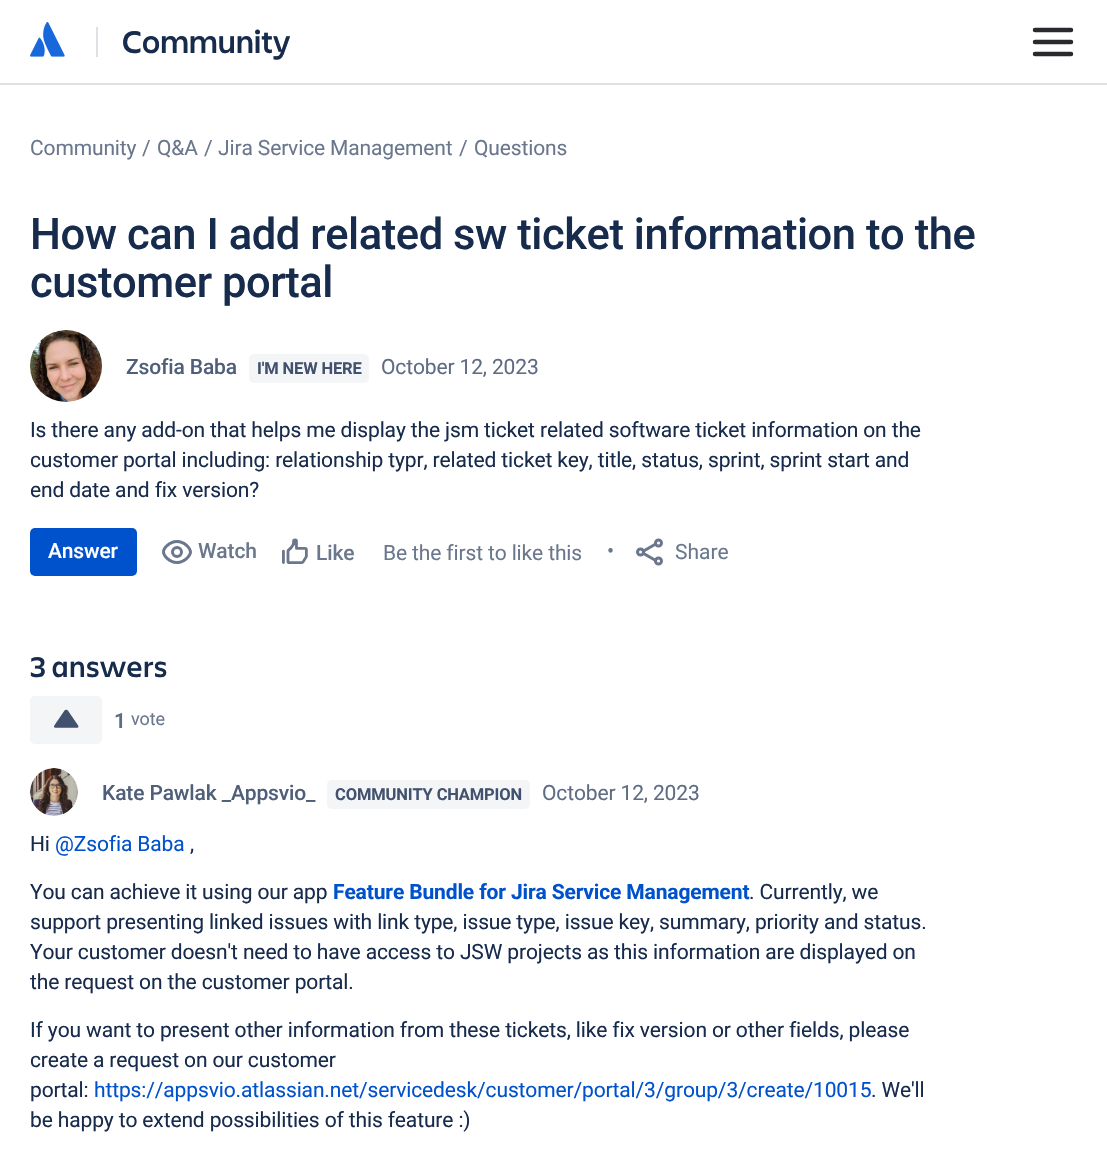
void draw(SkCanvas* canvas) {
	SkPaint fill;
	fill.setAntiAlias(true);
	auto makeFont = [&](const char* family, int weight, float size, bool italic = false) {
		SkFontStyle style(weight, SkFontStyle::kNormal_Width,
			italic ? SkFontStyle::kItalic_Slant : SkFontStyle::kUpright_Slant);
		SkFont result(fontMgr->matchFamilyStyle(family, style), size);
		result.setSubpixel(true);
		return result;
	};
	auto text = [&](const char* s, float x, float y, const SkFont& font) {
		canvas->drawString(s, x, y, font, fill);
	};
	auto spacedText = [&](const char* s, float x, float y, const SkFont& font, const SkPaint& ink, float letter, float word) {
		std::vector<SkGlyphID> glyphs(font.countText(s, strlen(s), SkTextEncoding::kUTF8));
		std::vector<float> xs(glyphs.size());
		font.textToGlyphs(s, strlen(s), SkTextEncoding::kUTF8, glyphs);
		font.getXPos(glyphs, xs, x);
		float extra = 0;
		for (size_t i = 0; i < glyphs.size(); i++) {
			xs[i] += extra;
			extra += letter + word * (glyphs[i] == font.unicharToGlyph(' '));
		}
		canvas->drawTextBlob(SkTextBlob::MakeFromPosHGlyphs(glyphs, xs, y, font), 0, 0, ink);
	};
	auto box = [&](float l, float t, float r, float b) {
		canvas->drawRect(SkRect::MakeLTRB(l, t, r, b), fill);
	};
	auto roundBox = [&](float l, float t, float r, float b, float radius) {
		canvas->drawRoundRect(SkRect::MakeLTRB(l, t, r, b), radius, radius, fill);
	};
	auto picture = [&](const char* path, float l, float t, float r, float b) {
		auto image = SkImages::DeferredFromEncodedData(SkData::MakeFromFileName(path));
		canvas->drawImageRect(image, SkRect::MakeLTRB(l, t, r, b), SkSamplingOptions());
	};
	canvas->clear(0xFFFFFFFF);
	fill.setColor(0xFFDFE1E6);
	box(0, 83, 1107, 85);
	picture("image0.png", 30, 22, 65, 57);
	box(96, 27, 98, 57);
	picture("image1.png", 1032, 27, 1074, 57);
	picture("image2.png", 30, 330, 102, 402);
	fill.setColor(0xFFF4F5F7);
	roundBox(249, 354, 369, 383, 5);
	fill.setColor(0xFF0052CC);
	roundBox(30, 528, 137, 576, 5);
	picture("image3.png", 162, 540, 192, 564);
	picture("image4.png", 282, 538, 308, 564);
	picture("image5.png", 636, 538, 663, 566);
	fill.setColor(0xFFF4F5F7);
	roundBox(30, 696, 102, 744, 5);
	picture("image6.png", 54, 709, 79, 728);
	picture("image7.png", 30, 768, 78, 816);
	roundBox(327, 780, 530, 809, 5);
	auto font1 = makeFont("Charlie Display", 600, 33);
	fill.setColor(0xFF172B4D);
	spacedText("Community", 122, 53, font1, fill, -0.13f, 0);
	auto font2 = makeFont("Roboto", 400, 21);
	fill.setColor(0xFF6B778C);
	spacedText("Community", 30, 155, font2, fill, -0.13f, 0);
	spacedText("/", 142, 155, font2, fill, -0.13f, 0);
	spacedText("Q&A", 157, 155, font2, fill, -0.13f, 0);
	spacedText("/", 204, 155, font2, fill, -0.13f, 0);
	spacedText("Jira Service Management", 218, 155, font2, fill, -0.13f, 0);
	spacedText("/", 459, 155, font2, fill, -0.13f, 0);
	spacedText("Questions", 474, 155, font2, fill, -0.13f, 0);
	auto font3 = makeFont("Roboto", 500, 43.5f);
	fill.setColor(0xFF172B4D);
	spacedText("How can I add related sw ticket information to the", 30, 249, font3, fill, -0.43f, 0);
	spacedText("customer portal", 30, 297, font3, fill, -0.43f, 0);
	auto font4 = makeFont("Roboto", 500, 21);
	fill.setColor(0xFF505F79);
	spacedText("Zsofia Baba", 126, 374, font4, fill, -0.13f, 0);
	auto font5 = makeFont("Roboto", 700, 16.5f);
	fill.setColor(0xFF42526E);
	spacedText("I'M NEW HERE", 257, 374, font5, fill, -0.13f, 0);
	fill.setColor(0xFF5E6C84);
	spacedText("October 12, 2023", 381, 374, font2, fill, -0.13f, 0);
	fill.setColor(0xFF172B4D);
	spacedText("Is there any add-on that helps me display the jsm ticket related software ticket information on the", 30, 437, font2, fill, -0.13f, 0);
	spacedText("customer portal including: relationship typr, related ticket key, title, status, sprint, sprint start and", 30, 467, font2, fill, -0.13f, 0);
	spacedText("end date and fix version?", 30, 497, font2, fill, -0.13f, 0);
	fill.setColor(0xFFFFFFFF);
	spacedText("Answer", 48, 558, font4, fill, -0.13f, 0);
	fill.setColor(0xFF6B778C);
	spacedText("Watch", 198, 558, font4, fill, -0.13f, 0);
	spacedText("Like", 316, 560, font4, fill, -0.13f, 0);
	spacedText("Be the first to like this", 383, 560, font2, fill, -0.13f, 0);
	spacedText("•", 607, 558, font2, fill, -0.13f, 0);
	text("Share", 675, 559, font2);
	auto font6 = makeFont("Charlie Display", 600, 30);
	fill.setColor(0xFF172B4D);
	spacedText("3 answers", 30, 677, font6, fill, 0.5f, 0);
	auto font7 = makeFont("Roboto", 600, 21);
	fill.setColor(0xFF5E6C84);
	spacedText("1", 114, 728, font7, fill, -0.13f, 0);
	auto font8 = makeFont("Roboto", 400, 18);
	fill.setColor(0xFF6B778C);
	spacedText("vote", 131, 725, font8, fill, -0.13f, 0);
	fill.setColor(0xFF505F79);
	spacedText("Kate Pawlak _Appsvio_", 102, 800, font4, fill, -0.13f, 0);
	fill.setColor(0xFF42526E);
	spacedText("COMMUNITY CHAMPION", 335, 800, font5, fill, -0.13f, 0);
	fill.setColor(0xFF5E6C84);
	spacedText("October 12, 2023", 542, 800, font2, fill, -0.13f, 0);
	fill.setColor(0xFF172B4D);
	spacedText("Hi", 30, 851, font2, fill, -0.13f, 0);
	fill.setColor(0xFF0052CC);
	spacedText("@Zsofia Baba", 55, 851, font2, fill, -0.13f, 0);
	fill.setColor(0xFF172B4D);
	spacedText(",", 190, 851, font2, fill, -0.13f, 0);
	spacedText("You can achieve it using our app", 30, 899, font2, fill, -0.13f, 0);
	auto font9 = makeFont("Roboto", 700, 21);
	fill.setColor(0xFF0052CC);
	spacedText("Feature Bundle for Jira Service Management", 333, 899, font9, fill, -0.13f, 0);
	fill.setColor(0xFF172B4D);
	spacedText(". Currently, we", 749, 899, font2, fill, -0.13f, 0);
	spacedText("support presenting linked issues with link type, issue type, issue key, summary, priority and status.", 30, 929, font2, fill, -0.13f, 0);
	spacedText("Your customer doesn't need to have access to JSW projects as this information are displayed on", 30, 959, font2, fill, -0.13f, 0);
	spacedText("the request on the customer portal.", 30, 989, font2, fill, -0.13f, 0);
	spacedText("If you want to present other information from these tickets, like fix version or other fields, please", 30, 1037, font2, fill, -0.13f, 0);
	spacedText("create a request on our customer", 30, 1067, font2, fill, -0.13f, 0);
	spacedText("portal:", 30, 1097, font2, fill, -0.13f, 0);
	fill.setColor(0xFF0052CC);
	spacedText("https://appsvio.atlassian.net/servicedesk/customer/portal/3/group/3/create/10015", 94, 1097, font2, fill, -0.13f, 0);
	fill.setColor(0xFF172B4D);
	spacedText(". We'll", 871, 1097, font2, fill, -0.13f, 0);
	spacedText("be happy to extend possibilities of this feature :)", 30, 1127, font2, fill, -0.13f, 0);
}
